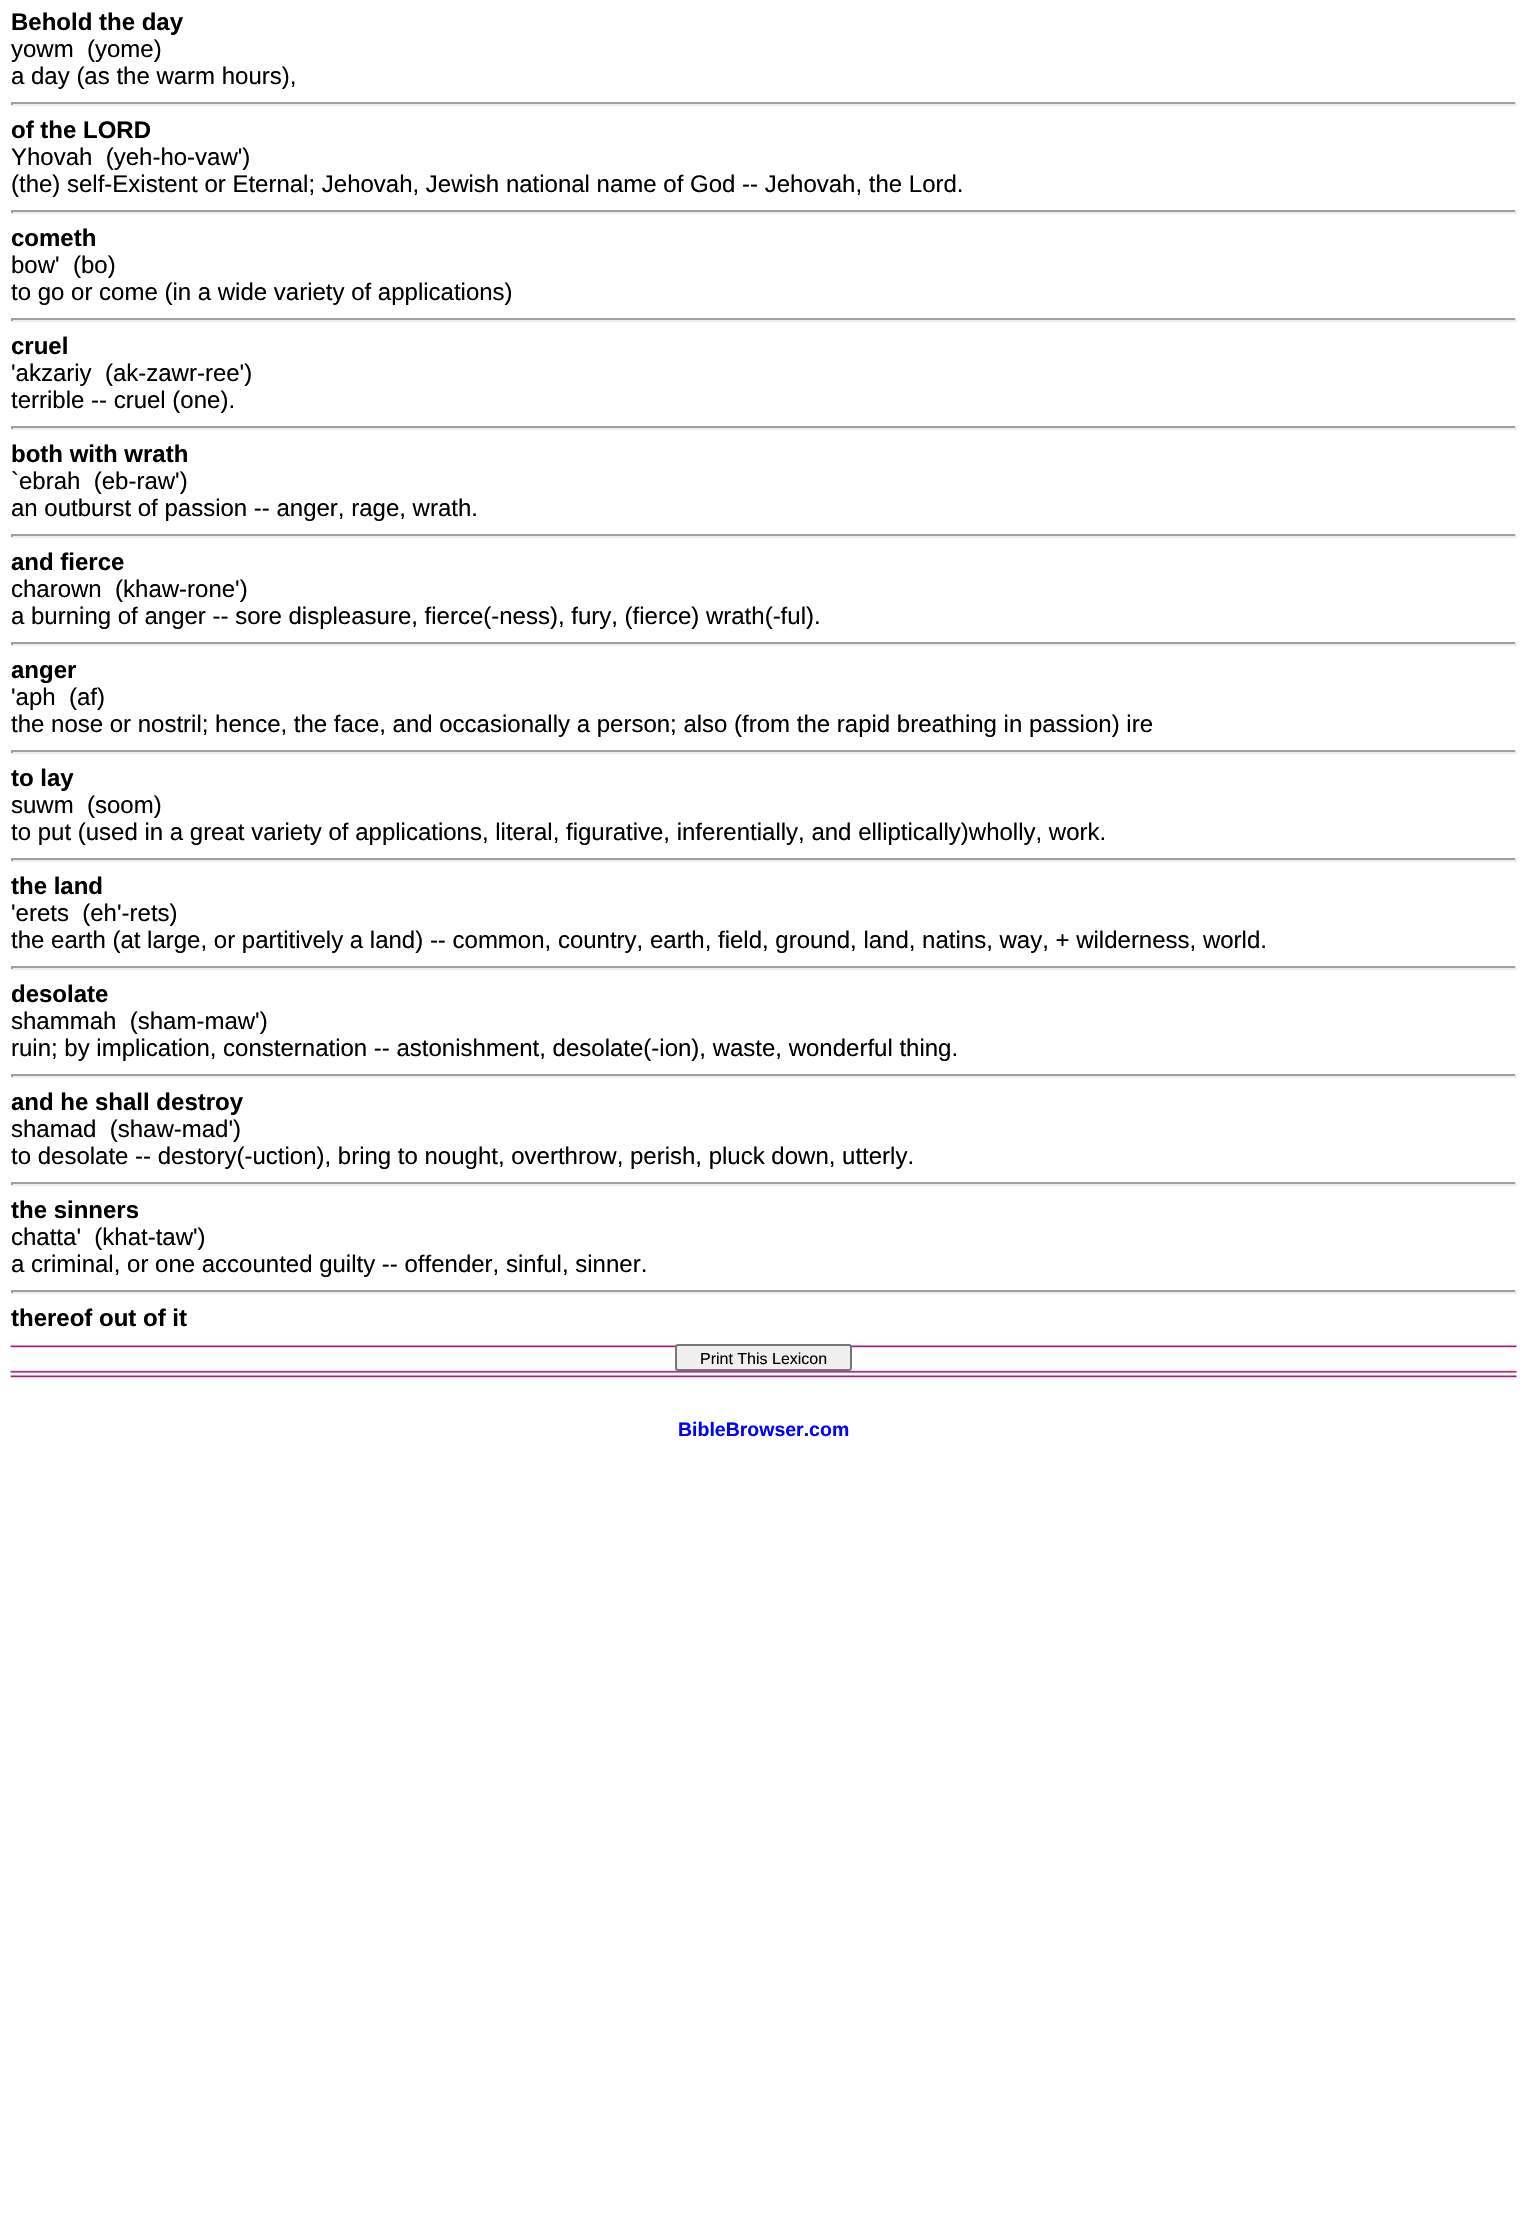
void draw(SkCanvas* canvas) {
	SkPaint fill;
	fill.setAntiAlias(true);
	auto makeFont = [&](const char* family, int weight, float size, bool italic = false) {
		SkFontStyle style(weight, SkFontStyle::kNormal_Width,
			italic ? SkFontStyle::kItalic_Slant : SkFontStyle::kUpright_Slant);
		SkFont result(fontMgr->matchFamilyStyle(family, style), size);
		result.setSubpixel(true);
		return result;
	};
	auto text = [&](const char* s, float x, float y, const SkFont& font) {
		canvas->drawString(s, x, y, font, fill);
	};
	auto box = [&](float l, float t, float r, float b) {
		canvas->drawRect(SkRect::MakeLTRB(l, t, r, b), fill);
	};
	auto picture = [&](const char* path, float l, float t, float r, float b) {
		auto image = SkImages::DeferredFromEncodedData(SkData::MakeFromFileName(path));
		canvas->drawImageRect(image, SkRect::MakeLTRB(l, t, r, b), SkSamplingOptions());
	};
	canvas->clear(0xFFFFFFFF);
	fill.setColor(0xFF9F9F9F);
	box(11, 102, 1517, 104);
	fill.setColor(0xFFEEEEEE);
	box(1515, 102, 1517, 105);
	box(11, 104, 1517, 106);
	fill.setColor(0xFF9F9F9F);
	box(11, 102, 13, 105);
	box(11, 210, 1517, 212);
	fill.setColor(0xFFEEEEEE);
	box(1515, 210, 1517, 213);
	box(11, 212, 1517, 214);
	fill.setColor(0xFF9F9F9F);
	box(11, 210, 13, 213);
	box(11, 318, 1517, 320);
	fill.setColor(0xFFEEEEEE);
	box(1515, 318, 1517, 321);
	box(11, 320, 1517, 322);
	fill.setColor(0xFF9F9F9F);
	box(11, 318, 13, 321);
	box(11, 426, 1517, 428);
	fill.setColor(0xFFEEEEEE);
	box(1515, 426, 1517, 429);
	box(11, 428, 1517, 430);
	fill.setColor(0xFF9F9F9F);
	box(11, 426, 13, 429);
	box(11, 534, 1517, 536);
	fill.setColor(0xFFEEEEEE);
	box(1515, 534, 1517, 537);
	box(11, 536, 1517, 538);
	fill.setColor(0xFF9F9F9F);
	box(11, 534, 13, 537);
	box(11, 642, 1517, 644);
	fill.setColor(0xFFEEEEEE);
	box(1515, 642, 1517, 645);
	box(11, 644, 1517, 646);
	fill.setColor(0xFF9F9F9F);
	box(11, 642, 13, 645);
	box(11, 750, 1517, 752);
	fill.setColor(0xFFEEEEEE);
	box(1515, 750, 1517, 753);
	box(11, 752, 1517, 754);
	fill.setColor(0xFF9F9F9F);
	box(11, 750, 13, 753);
	box(11, 858, 1517, 860);
	fill.setColor(0xFFEEEEEE);
	box(1515, 858, 1517, 861);
	box(11, 860, 1517, 862);
	fill.setColor(0xFF9F9F9F);
	box(11, 858, 13, 861);
	box(11, 966, 1517, 968);
	fill.setColor(0xFFEEEEEE);
	box(1515, 966, 1517, 969);
	box(11, 968, 1517, 970);
	fill.setColor(0xFF9F9F9F);
	box(11, 966, 13, 969);
	box(11, 1074, 1517, 1076);
	fill.setColor(0xFFEEEEEE);
	box(1515, 1074, 1517, 1077);
	box(11, 1076, 1517, 1078);
	fill.setColor(0xFF9F9F9F);
	box(11, 1074, 13, 1077);
	box(11, 1182, 1517, 1184);
	fill.setColor(0xFFEEEEEE);
	box(1515, 1182, 1517, 1185);
	box(11, 1184, 1517, 1186);
	fill.setColor(0xFF9F9F9F);
	box(11, 1182, 13, 1185);
	box(11, 1290, 1517, 1292);
	fill.setColor(0xFFEEEEEE);
	box(1515, 1290, 1517, 1293);
	box(11, 1292, 1517, 1294);
	fill.setColor(0xFF9F9F9F);
	box(11, 1290, 13, 1293);
	picture("image0.png", 10, 1345, 1517, 1378);
	fill.setColor(0xFFEFEFEF);
	canvas->drawRoundRect(SkRect::MakeLTRB(676, 1345, 851, 1370), 2, 2, fill);
	fill.setStyle(SkPaint::kStroke_Style);
	fill.setStrokeWidth(2);
	fill.setColor(0xFF767676);
	canvas->drawRoundRect(SkRect::MakeLTRB(676, 1345, 851, 1370), 2, 2, fill);
	auto font1 = makeFont("Liberation Sans", 700, 24);
	fill.setStyle(SkPaint::kFill_Style);
	fill.setColor(0xFF000000);
	text("Behold the day", 11, 30, font1);
	auto font2 = makeFont("Liberation Sans", 400, 24);
	text("yowm  (yome)", 11, 57, font2);
	text("a day (as the warm hours),", 11, 84, font2);
	text("of the LORD", 11, 138, font1);
	text("Yhovah  (yeh-ho-vaw')", 11, 165, font2);
	text("(the) self-Existent or Eternal; Jehovah, Jewish national name of God -- Jehovah, the Lord.", 11, 192, font2);
	text("cometh", 11, 246, font1);
	text("bow'  (bo)", 11, 273, font2);
	text("to go or come (in a wide variety of applications)", 11, 300, font2);
	text("cruel", 11, 354, font1);
	text("'akzariy  (ak-zawr-ree')", 11, 381, font2);
	text("terrible -- cruel (one).", 11, 408, font2);
	text("both with wrath", 11, 462, font1);
	text("`ebrah  (eb-raw')", 11, 489, font2);
	text("an outburst of passion -- anger, rage, wrath.", 11, 516, font2);
	text("and fierce", 11, 570, font1);
	text("charown  (khaw-rone')", 11, 597, font2);
	text("a burning of anger -- sore displeasure, fierce(-ness), fury, (fierce) wrath(-ful).", 11, 624, font2);
	text("anger", 11, 678, font1);
	text("'aph  (af)", 11, 705, font2);
	text("the nose or nostril; hence, the face, and occasionally a person; also (from the rapid breathing in passion) ire", 11, 732, font2);
	text("to lay", 11, 786, font1);
	text("suwm  (soom)", 11, 813, font2);
	text("to put (used in a great variety of applications, literal, figurative, inferentially, and elliptically)wholly, work.", 11, 840, font2);
	text("the land", 11, 894, font1);
	text("'erets  (eh'-rets)", 11, 921, font2);
	text("the earth (at large, or partitively a land) -- common, country, earth, field, ground, land, natins, way, + wilderness, world.", 11, 948, font2);
	text("desolate", 11, 1002, font1);
	text("shammah  (sham-maw')", 11, 1029, font2);
	text("ruin; by implication, consternation -- astonishment, desolate(-ion), waste, wonderful thing.", 11, 1056, font2);
	text("and he shall destroy", 11, 1110, font1);
	text("shamad  (shaw-mad')", 11, 1137, font2);
	text("to desolate -- destory(-uction), bring to nought, overthrow, perish, pluck down, utterly.", 11, 1164, font2);
	text("the sinners", 11, 1218, font1);
	text("chatta'  (khat-taw')", 11, 1245, font2);
	text("a criminal, or one accounted guilty -- offender, sinful, sinner.", 11, 1272, font2);
	text("thereof out of it", 11, 1326, font1);
	auto font3 = makeFont("Liberation Sans", 400, 16);
	text("Print This Lexicon", 700, 1364, font3);
	auto font4 = makeFont("Liberation Sans", 700, 19.5f);
	fill.setColor(0xFF0000FF);
	text("BibleBrowser.com", 678, 1436, font4);
}
